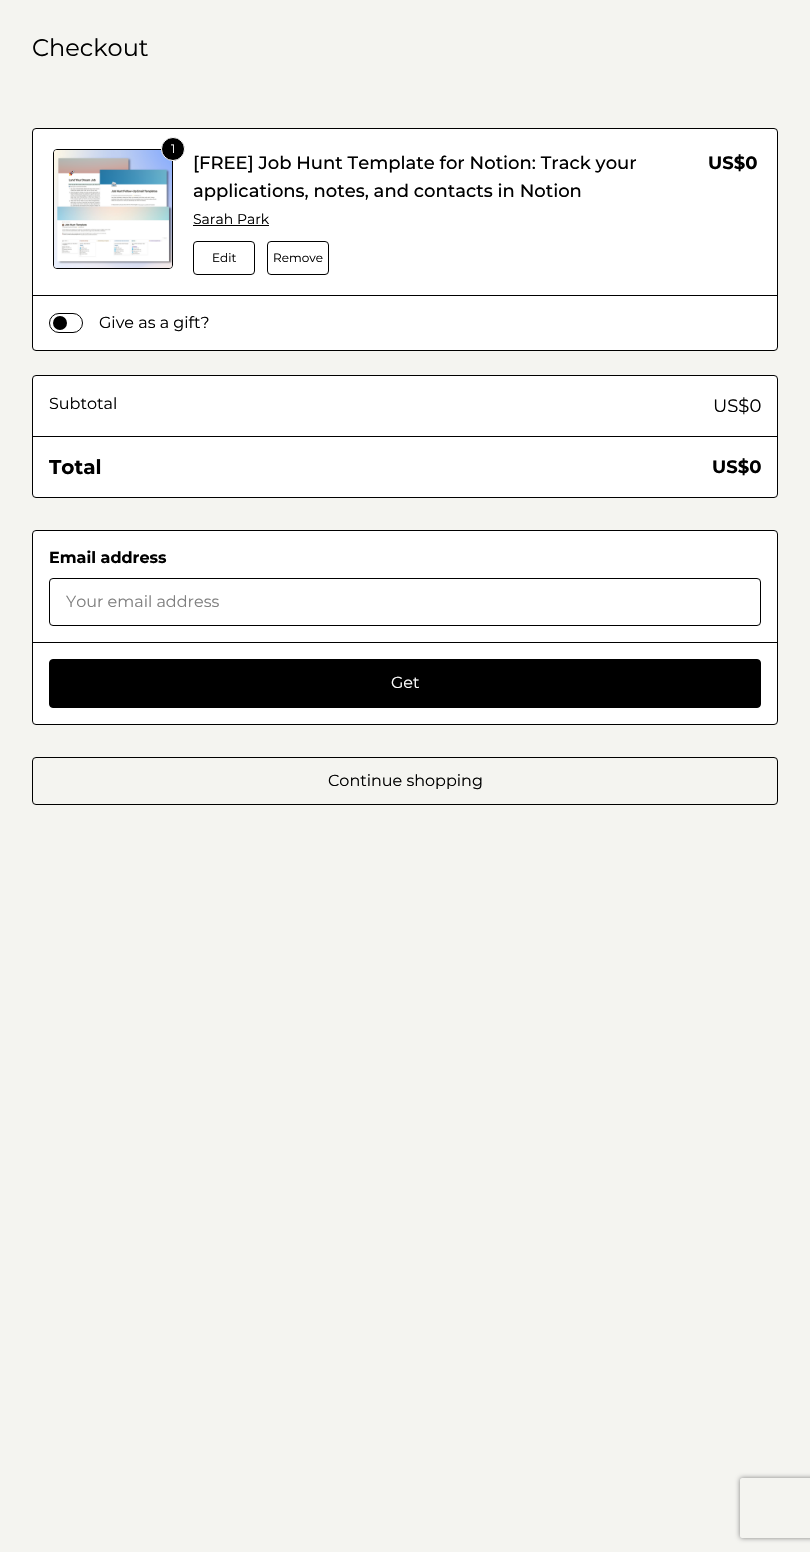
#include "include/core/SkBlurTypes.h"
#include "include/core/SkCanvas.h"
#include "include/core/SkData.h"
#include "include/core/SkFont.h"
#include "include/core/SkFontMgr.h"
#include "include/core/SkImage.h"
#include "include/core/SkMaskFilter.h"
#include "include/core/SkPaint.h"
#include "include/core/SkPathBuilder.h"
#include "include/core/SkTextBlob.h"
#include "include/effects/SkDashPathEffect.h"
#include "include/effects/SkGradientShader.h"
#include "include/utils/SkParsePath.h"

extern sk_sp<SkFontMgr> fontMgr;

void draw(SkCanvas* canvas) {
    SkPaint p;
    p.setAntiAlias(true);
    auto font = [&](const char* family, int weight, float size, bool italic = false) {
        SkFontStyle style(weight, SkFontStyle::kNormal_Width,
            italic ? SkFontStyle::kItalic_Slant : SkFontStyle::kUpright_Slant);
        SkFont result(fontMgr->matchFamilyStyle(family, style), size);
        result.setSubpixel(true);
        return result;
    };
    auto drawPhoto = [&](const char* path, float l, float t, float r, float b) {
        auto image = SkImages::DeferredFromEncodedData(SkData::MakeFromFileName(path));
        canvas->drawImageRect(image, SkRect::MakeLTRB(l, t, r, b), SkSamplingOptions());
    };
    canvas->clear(0xFFF4F4F0);
    auto font1 = font("Montserrat", 400, 24);
    p.setColor(0xFF000000);
    canvas->drawString("Checkout", 32, 56, font1, p);
    p.setColor(0xFFFFFFFF);
    canvas->drawRoundRect(SkRect::MakeLTRB(32.5f, 128.5f, 777.5f, 350.5f), 3.5f, 3.5f, p);
    p.setStyle(SkPaint::kStroke_Style);
    p.setStrokeWidth(1);
    p.setColor(0xFF000000);
    canvas->drawRoundRect(SkRect::MakeLTRB(32.5f, 128.5f, 777.5f, 350.5f), 3.5f, 3.5f, p);
    canvas->drawRoundRect(SkRect::MakeLTRB(53.5f, 149.5f, 172.5f, 268.5f), 3.5f, 3.5f, p);
    drawPhoto("media/1.png", 54, 150, 172, 268);
    p.setStyle(SkPaint::kFill_Style);
    canvas->drawCircle(173, 149, 11.5f, p);
    p.setStyle(SkPaint::kStroke_Style);
    p.setColor(0xFFFFFFFF);
    canvas->drawCircle(173, 149, 11.5f, p);
    auto font2 = font("Montserrat", 400, 12);
    p.setStyle(SkPaint::kFill_Style);
    canvas->drawString("1", 171, 153, font2, p);
    auto font3 = font("Montserrat", 500, 18);
    p.setColor(0xFF000000);
    canvas->drawString("[FREE] Job Hunt Template for Notion: Track your", 193, 169, font3, p);
    canvas->drawString("applications, notes, and contacts in Notion", 193, 197, font3, p);
    auto font4 = font("Montserrat", 400, 14);
    canvas->drawString("Sarah Park", 193, 224, font4, p);
    canvas->drawRect(SkRect::MakeLTRB(193, 225, 269, 226), p);
    p.setStyle(SkPaint::kStroke_Style);
    canvas->drawRoundRect(SkRect::MakeLTRB(193.5f, 241.5f, 254.5f, 274.5f), 3.5f, 3.5f, p);
    p.setStyle(SkPaint::kFill_Style);
    canvas->drawString("Edit", 212, 262, font2, p);
    p.setStyle(SkPaint::kStroke_Style);
    canvas->drawRoundRect(SkRect::MakeLTRB(267.5f, 241.5f, 328.5f, 274.5f), 3.5f, 3.5f, p);
    p.setStyle(SkPaint::kFill_Style);
    canvas->drawString("Remove", 273, 262, font2, p);
    auto font5 = font("Montserrat", 700, 18);
    canvas->drawString("US$0", 708, 169, font5, p);
    canvas->drawRect(SkRect::MakeLTRB(33, 295, 777, 296), p);
    p.setStyle(SkPaint::kStroke_Style);
    canvas->drawRoundRect(SkRect::MakeLTRB(49.5f, 313.5f, 82.5f, 332.5f), 9.5f, 9.5f, p);
    p.setStyle(SkPaint::kFill_Style);
    canvas->drawCircle(60, 323, 7, p);
    auto font6 = font("Montserrat", 400, 16);
    canvas->drawString("Give as a gift?", 99, 328, font6, p);
    p.setColor(0xFFFFFFFF);
    canvas->drawRoundRect(SkRect::MakeLTRB(32.5f, 375.5f, 777.5f, 497.5f), 3.5f, 3.5f, p);
    p.setStyle(SkPaint::kStroke_Style);
    p.setColor(0xFF000000);
    canvas->drawRoundRect(SkRect::MakeLTRB(32.5f, 375.5f, 777.5f, 497.5f), 3.5f, 3.5f, p);
    p.setStyle(SkPaint::kFill_Style);
    canvas->drawString("Subtotal", 49, 409, font6, p);
    auto font7 = font("Montserrat", 400, 18);
    canvas->drawString("US$0", 713, 412, font7, p);
    canvas->drawRect(SkRect::MakeLTRB(33, 436, 777, 437), p);
    auto font8 = font("Montserrat", 700, 20);
    canvas->drawString("Total", 49, 474, font8, p);
    canvas->drawString("US$0", 712, 473, font5, p);
    p.setColor(0xFFFFFFFF);
    canvas->drawRoundRect(SkRect::MakeLTRB(32.5f, 530.5f, 777.5f, 724.5f), 3.5f, 3.5f, p);
    p.setStyle(SkPaint::kStroke_Style);
    p.setColor(0xFF000000);
    canvas->drawRoundRect(SkRect::MakeLTRB(32.5f, 530.5f, 777.5f, 724.5f), 3.5f, 3.5f, p);
    auto font9 = font("Montserrat", 700, 16);
    p.setStyle(SkPaint::kFill_Style);
    canvas->drawString("Email address", 49, 563, font9, p);
    p.setStyle(SkPaint::kStroke_Style);
    canvas->drawRoundRect(SkRect::MakeLTRB(49.5f, 578.5f, 760.5f, 625.5f), 3.5f, 3.5f, p);
    p.setStyle(SkPaint::kFill_Style);
    p.setColor(0xFF808080);
    canvas->drawString("Your email address", 66, 607, font6, p);
    p.setColor(0xFF000000);
    canvas->drawRect(SkRect::MakeLTRB(33, 642, 777, 643), p);
    canvas->drawRoundRect(SkRect::MakeLTRB(49.5f, 659.5f, 760.5f, 707.5f), 3.5f, 3.5f, p);
    p.setStyle(SkPaint::kStroke_Style);
    canvas->drawRoundRect(SkRect::MakeLTRB(49.5f, 659.5f, 760.5f, 707.5f), 3.5f, 3.5f, p);
    p.setStyle(SkPaint::kFill_Style);
    p.setColor(0xFFFFFFFF);
    canvas->drawString("Get", 391, 688, font6, p);
    canvas->save();
    canvas->clipPath(SkPathBuilder(SkPathFillType::kEvenOdd).moveTo(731, 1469).lineTo(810, 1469).lineTo(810, 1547).lineTo(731, 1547).close().moveTo(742, 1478).lineTo(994, 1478).cubicTo(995, 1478, 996, 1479, 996, 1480).lineTo(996, 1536).cubicTo(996, 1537, 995, 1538, 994, 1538).lineTo(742, 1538).cubicTo(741, 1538, 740, 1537, 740, 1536).lineTo(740, 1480).cubicTo(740, 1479, 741, 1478, 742, 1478).close().detach(), true);
    p.setColor(0xFF808080);
    p.setMaskFilter(SkMaskFilter::MakeBlur(kNormal_SkBlurStyle, 2.5f));
    canvas->drawRoundRect(SkRect::MakeLTRB(740, 1478, 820, 1538), 2, 2, p);
    p.setMaskFilter(nullptr);
    canvas->restore();
    p.setStyle(SkPaint::kStroke_Style);
    p.setColor(0xFF000000);
    canvas->drawRoundRect(SkRect::MakeLTRB(32.5f, 757.5f, 777.5f, 804.5f), 3.5f, 3.5f, p);
    p.setStyle(SkPaint::kFill_Style);
    canvas->drawString("Continue shopping", 328, 786, font6, p);
}
